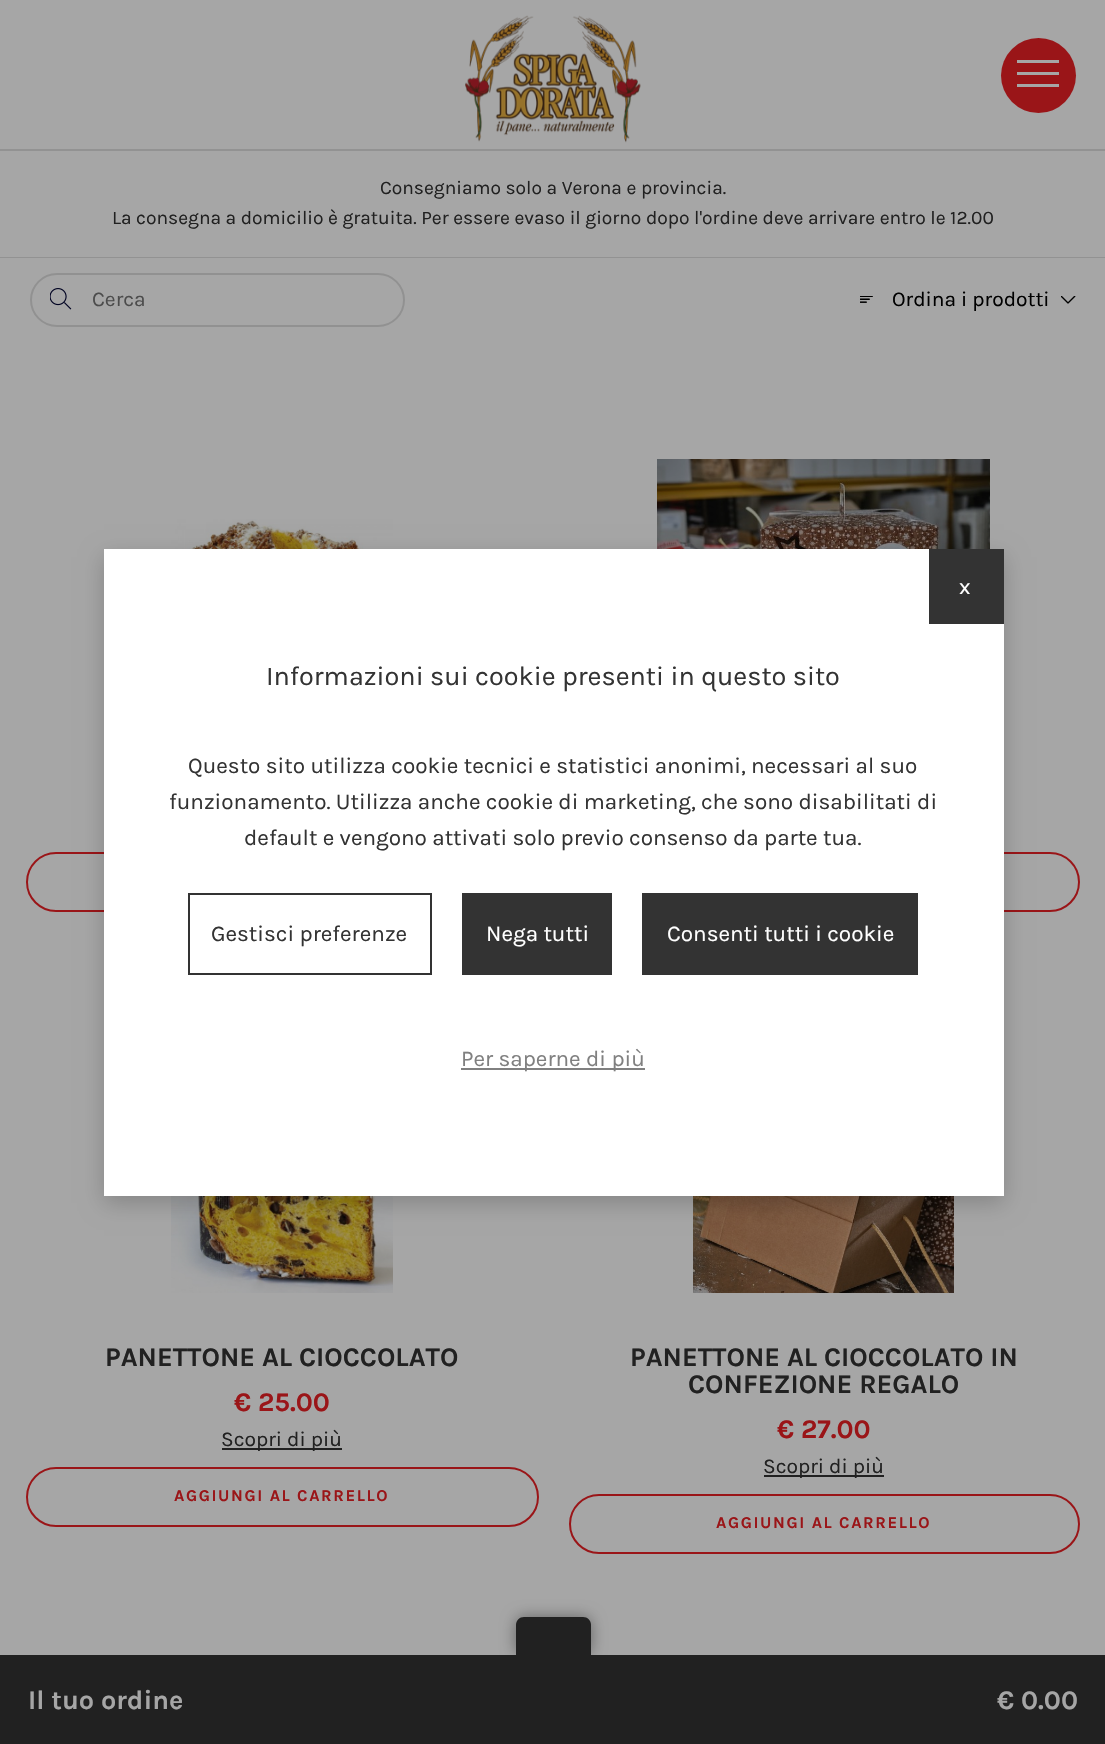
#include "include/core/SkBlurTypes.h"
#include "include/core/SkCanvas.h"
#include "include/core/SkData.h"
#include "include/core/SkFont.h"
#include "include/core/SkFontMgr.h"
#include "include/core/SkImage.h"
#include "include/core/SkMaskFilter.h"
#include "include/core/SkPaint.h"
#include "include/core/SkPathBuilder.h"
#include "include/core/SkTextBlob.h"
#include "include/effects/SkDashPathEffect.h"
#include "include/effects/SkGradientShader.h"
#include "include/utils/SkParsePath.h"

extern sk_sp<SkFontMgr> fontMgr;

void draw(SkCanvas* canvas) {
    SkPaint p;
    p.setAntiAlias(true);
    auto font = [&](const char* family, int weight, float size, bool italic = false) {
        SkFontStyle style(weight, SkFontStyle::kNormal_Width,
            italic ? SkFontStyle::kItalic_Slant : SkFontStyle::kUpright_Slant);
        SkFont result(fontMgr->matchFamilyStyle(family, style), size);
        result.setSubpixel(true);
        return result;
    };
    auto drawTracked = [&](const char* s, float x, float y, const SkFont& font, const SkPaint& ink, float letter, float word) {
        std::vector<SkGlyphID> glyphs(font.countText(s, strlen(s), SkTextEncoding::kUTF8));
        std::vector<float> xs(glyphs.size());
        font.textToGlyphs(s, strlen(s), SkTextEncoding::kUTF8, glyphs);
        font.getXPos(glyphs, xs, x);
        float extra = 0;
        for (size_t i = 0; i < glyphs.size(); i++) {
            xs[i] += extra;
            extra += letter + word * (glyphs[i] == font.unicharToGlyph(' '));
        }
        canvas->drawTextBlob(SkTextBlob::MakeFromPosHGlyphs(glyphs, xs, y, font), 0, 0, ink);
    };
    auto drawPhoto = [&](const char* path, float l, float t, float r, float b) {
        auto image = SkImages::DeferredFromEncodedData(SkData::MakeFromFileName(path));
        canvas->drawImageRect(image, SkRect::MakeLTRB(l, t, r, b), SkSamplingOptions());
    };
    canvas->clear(0xFFA6A6A6);
    p.setColor(0xFF929292);
    canvas->drawRect(SkRect::MakeLTRB(0, 149, 1105, 151), p);
    drawPhoto("media/1.png", 465, 15, 641, 143);
    p.setColor(0xFF9A1518);
    canvas->drawCircle(1038.5f, 75.5f, 37.5f, p);
    {
        const struct { float l, t, r, b; SkColor color; } items[] = {
            {1017, 60, 1059, 63, 0xFFA6A6A6},
            {1017, 72, 1059, 75, 0xFFA6A6A6},
            {1017, 84, 1059, 87, 0xFFA6A6A6},
            {0, 257, 1105, 258, 0xFF929292},
        };
        for (auto [l, t, r, b, color] : items) {
            p.setColor(color);
            canvas->drawRect(SkRect::MakeLTRB(l, t, r, b), p);
        }
    }
    auto font1 = font("Karla", 400, 19.2f);
    p.setColor(0xFF212121);
    canvas->drawString("Consegniamo solo a Verona e provincia.", 380, 194, font1, p);
    canvas->drawString("La consegna a domicilio è gratuita. Per essere evaso il giorno dopo l'ordine deve arrivare entro le 12.00", 112, 224, font1, p);
    drawPhoto("media/2.png", 50, 288, 72, 310);
    p.setStyle(SkPaint::kStroke_Style);
    p.setStrokeWidth(2);
    p.setColor(0xFF919191);
    canvas->drawRoundRect(SkRect::MakeLTRB(31, 274, 404, 326), 26, 26, p);
    auto font2 = font("Karla", 400, 21);
    p.setStyle(SkPaint::kFill_Style);
    p.setColor(0xFF4C4C4C);
    canvas->drawString("Cerca", 92, 306, font2, p);
    drawPhoto("media/3.png", 860, 296, 873, 303);
    drawPhoto("media/4.png", 1061, 296, 1076, 304);
    p.setColor(0xFF000000);
    canvas->drawString("Ordina i prodotti", 892, 306, font2, p);
    drawPhoto("media/5.png", 171, 519, 393, 549);
    p.setStyle(SkPaint::kStroke_Style);
    p.setColor(0xFF9A1518);
    canvas->drawRoundRect(SkRect::MakeLTRB(27, 853, 538, 911), 29, 29, p);
    drawPhoto("media/6.png", 657, 459, 990, 549);
    canvas->drawRoundRect(SkRect::MakeLTRB(570, 853, 1079, 911), 29, 29, p);
    drawPhoto("media/7.png", 171, 1196, 393, 1293);
    auto font3 = font("Karla", 700, 27);
    p.setStyle(SkPaint::kFill_Style);
    p.setColor(0xFF212121);
    canvas->drawString("PANETTONE AL CIOCCOLATO", 105, 1366, font3, p);
    p.setColor(0xFF9A1518);
    canvas->drawString("€ 25.00", 234, 1411, font3, p);
    p.setColor(0xFF212121);
    canvas->drawRect(SkRect::MakeLTRB(222, 1448, 342, 1450), p);
    canvas->drawString("Scopri di più", 221, 1446, font2, p);
    p.setStyle(SkPaint::kStroke_Style);
    p.setColor(0xFF9A1518);
    canvas->drawRoundRect(SkRect::MakeLTRB(27, 1468, 538, 1526), 29, 29, p);
    auto font4 = font("Karla", 700, 16.5f);
    p.setStyle(SkPaint::kFill_Style);
    drawTracked("AGGIUNGI AL CARRELLO", 174, 1501, font4, p, 1.6f, 0);
    drawPhoto("media/8.png", 693, 1196, 954, 1293);
    p.setColor(0xFF212121);
    canvas->drawString("PANETTONE AL CIOCCOLATO IN", 630, 1366, font3, p);
    canvas->drawString("CONFEZIONE REGALO", 688, 1393, font3, p);
    p.setColor(0xFF9A1518);
    canvas->drawString("€ 27.00", 777, 1438, font3, p);
    p.setColor(0xFF212121);
    canvas->drawRect(SkRect::MakeLTRB(764, 1475, 884, 1477), p);
    canvas->drawString("Scopri di più", 763, 1473, font2, p);
    p.setStyle(SkPaint::kStroke_Style);
    p.setColor(0xFF9A1518);
    canvas->drawRoundRect(SkRect::MakeLTRB(570, 1495, 1079, 1553), 29, 29, p);
    p.setStyle(SkPaint::kFill_Style);
    drawTracked("AGGIUNGI AL CARRELLO", 716, 1528, font4, p, 1.6f, 0);
    p.setColor(0x66000000);
    p.setMaskFilter(SkMaskFilter::MakeBlur(kNormal_SkBlurStyle, 7.5f));
    canvas->drawRoundRect(SkRect::MakeLTRB(516, 1617, 591, 1655), 8, 8, p);
    p.setMaskFilter(nullptr);
    p.setColor(0xFF212121);
    canvas->drawRect(SkRect::MakeLTRB(0, 1655, 1105, 1744), p);
    canvas->drawPath(SkPathBuilder().moveTo(524, 1617).lineTo(583, 1617).cubicTo(587.5f, 1617, 591, 1620.5f, 591, 1625).lineTo(591, 1655).lineTo(516, 1655).lineTo(516, 1625).cubicTo(516, 1620.5f, 519.5f, 1617, 524, 1617).close().detach(), p);
    p.setColor(0xFFA6A6A6);
    canvas->drawString("Il tuo ordine", 28, 1709, font3, p);
    canvas->drawString("€ 0.00", 997, 1709, font3, p);
    p.setColor(0x33000000);
    p.setMaskFilter(SkMaskFilter::MakeBlur(kNormal_SkBlurStyle, 11));
    canvas->drawRect(SkRect::MakeLTRB(104, 557, 1004, 1203), p);
    p.setMaskFilter(nullptr);
    p.setColor(0xFFFFFFFF);
    canvas->drawRect(SkRect::MakeLTRB(104, 549, 1004, 1196), p);
    p.setColor(0xFF333333);
    canvas->drawRect(SkRect::MakeLTRB(929, 549, 1004, 624), p);
    auto font5 = font("Karla", 400, 22.5f);
    p.setColor(0xFFFFFFFF);
    canvas->drawString("x", 959, 594, font5, p);
    auto font6 = font("Karla", 400, 27);
    p.setColor(0xFF333333);
    canvas->drawString("Informazioni sui cookie presenti in questo sito", 266, 685, font6, p);
    {
        const struct { const char* s; float x, y; } items[] = {
            {"Questo sito utilizza cookie tecnici e statistici anonimi, necessari al suo", 188, 773},
            {"funzionamento. Utilizza anche cookie di marketing, che sono disabilitati di", 169, 809},
            {"default e vengono attivati solo previo consenso da parte tua.", 244, 845},
        };
        for (auto [s, x, y] : items) {
            canvas->drawString(s, x, y, font5, p);
        }
    }
    p.setStyle(SkPaint::kStroke_Style);
    canvas->drawRect(SkRect::MakeLTRB(189, 894, 431, 974), p);
    p.setStyle(SkPaint::kFill_Style);
    canvas->drawString("Gestisci preferenze", 211, 941, font5, p);
    canvas->drawRect(SkRect::MakeLTRB(462, 893, 612, 975), p);
    p.setColor(0xFFFFFFFF);
    canvas->drawString("Nega tutti", 486, 941, font5, p);
    p.setColor(0xFF333333);
    canvas->drawRect(SkRect::MakeLTRB(642, 893, 918, 975), p);
    p.setColor(0xFFFFFFFF);
    canvas->drawString("Consenti tutti i cookie", 667, 941, font5, p);
    p.setColor(0xFF808080);
    canvas->drawRect(SkRect::MakeLTRB(461, 1068, 645, 1070), p);
    canvas->drawString("Per saperne di più", 461, 1066, font5, p);
}
